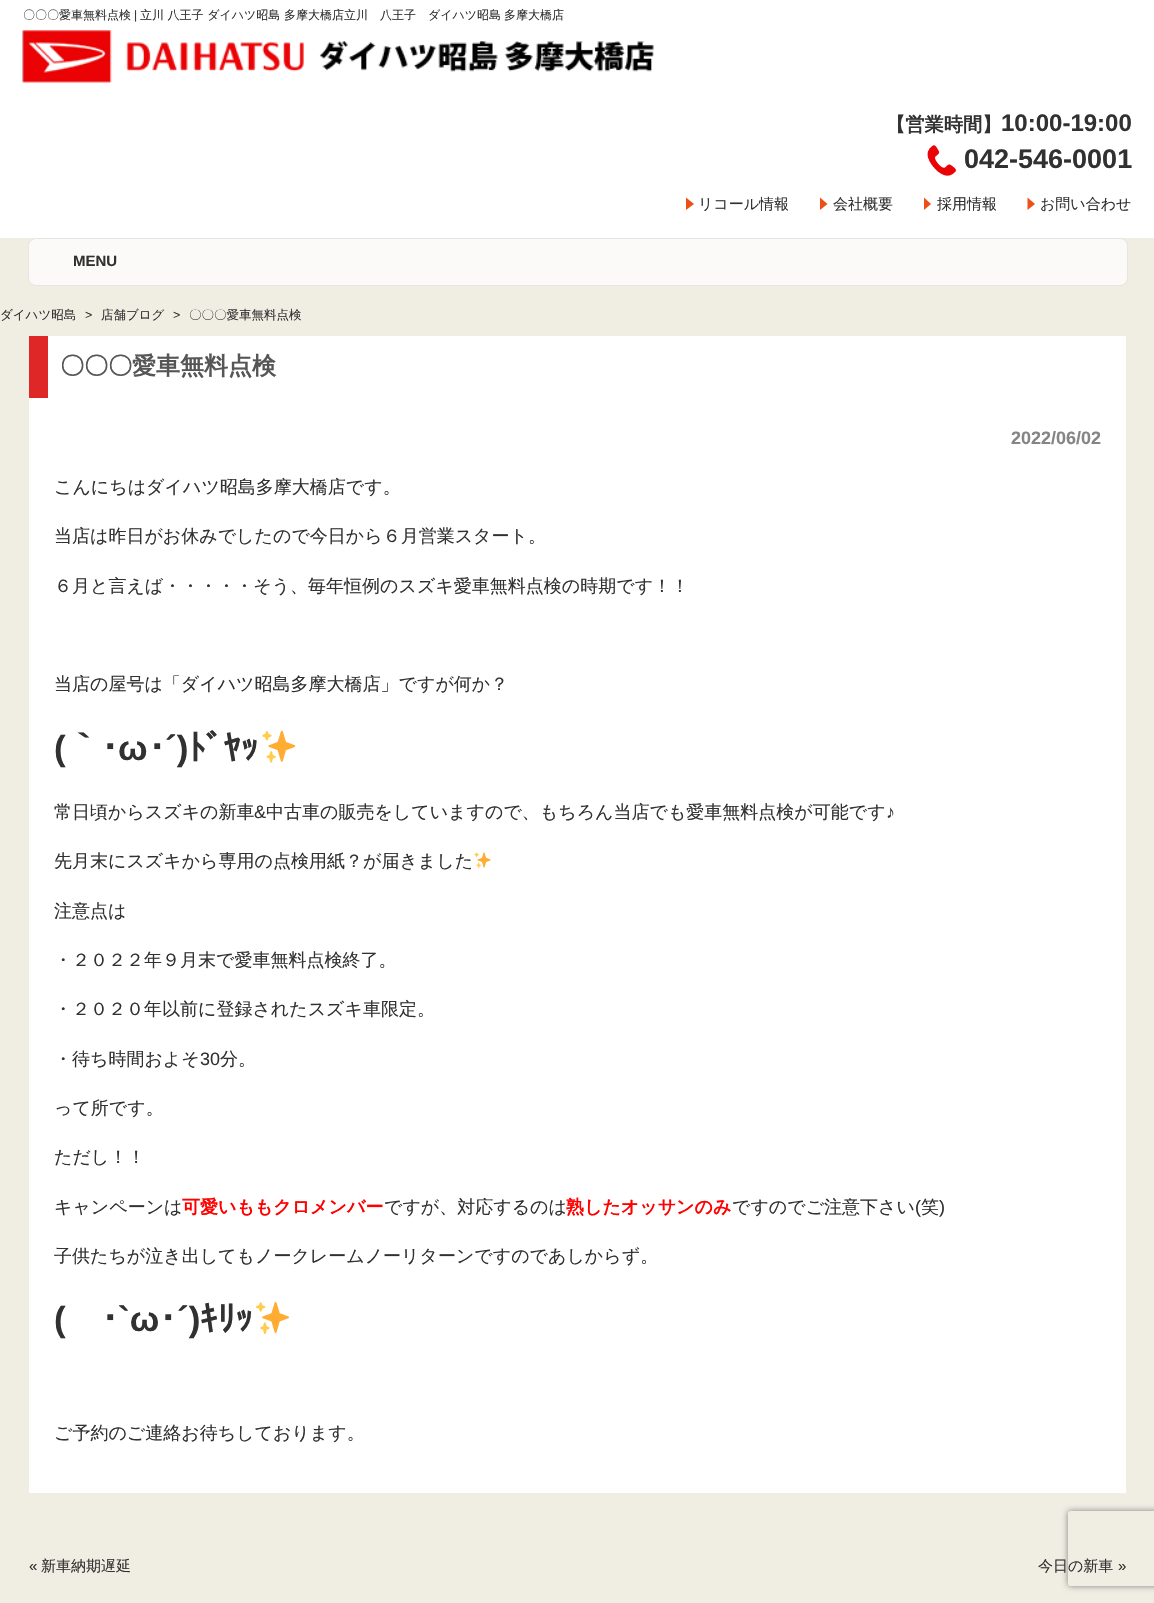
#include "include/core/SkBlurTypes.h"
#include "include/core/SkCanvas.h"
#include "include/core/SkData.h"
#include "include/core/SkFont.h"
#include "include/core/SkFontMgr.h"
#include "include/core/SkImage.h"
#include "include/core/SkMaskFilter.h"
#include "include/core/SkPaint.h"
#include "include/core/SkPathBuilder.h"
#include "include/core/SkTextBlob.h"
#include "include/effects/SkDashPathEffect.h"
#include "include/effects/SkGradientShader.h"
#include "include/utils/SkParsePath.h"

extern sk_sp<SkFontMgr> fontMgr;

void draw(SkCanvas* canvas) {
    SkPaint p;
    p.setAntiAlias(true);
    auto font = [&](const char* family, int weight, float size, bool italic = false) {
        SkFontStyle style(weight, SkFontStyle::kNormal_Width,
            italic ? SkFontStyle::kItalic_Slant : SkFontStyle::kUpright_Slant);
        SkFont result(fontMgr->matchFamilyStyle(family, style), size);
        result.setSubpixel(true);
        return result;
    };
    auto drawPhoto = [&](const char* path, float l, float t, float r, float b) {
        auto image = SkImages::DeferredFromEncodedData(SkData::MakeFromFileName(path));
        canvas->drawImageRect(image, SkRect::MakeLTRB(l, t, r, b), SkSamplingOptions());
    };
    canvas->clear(0xFFF0EEE3);
    p.setColor(0xFFFFFFFF);
    canvas->drawRect(SkRect::MakeLTRB(0, 0, 1154, 238), p);
    auto font1 = font("WenQuanYi Zen Hei", 500, 12);
    p.setColor(0xFF313131);
    canvas->drawString("〇〇〇愛車無料点検", 23, 19, font1, p);
    auto font2 = font("Liberation Sans", 400, 12);
    canvas->drawString("|", 134, 19, font2, p);
    canvas->drawString("立川 八王子 ダイハツ昭島 多摩大橋店立川　八王子　ダイハツ昭島", 140, 19, font1, p);
    canvas->drawString("多摩大橋店", 504, 19, font1, p);
    drawPhoto("media/1.png", 22, 30, 654, 83);
    auto font3 = font("WenQuanYi Zen Hei", 700, 19.25f);
    canvas->drawString("【営業時間】", 886, 131, font3, p);
    auto font4 = font("Liberation Sans", 700, 24);
    canvas->drawString("10:00-19:00", 1001, 131, font4, p);
    drawPhoto("media/2.png", 927, 145, 957, 176);
    auto font5 = font("Liberation Sans", 700, 27);
    canvas->drawString("042-546-0001", 964, 168, font5, p);
    p.setColor(0xFFEE4F16);
    canvas->drawPath(SkPathBuilder().moveTo(686, 210).lineTo(686, 197.5f).lineTo(694, 204).close().detach(), p);
    auto font6 = font("WenQuanYi Zen Hei", 500, 15);
    p.setColor(0xFF313131);
    canvas->drawString("リコール情報", 698, 209, font6, p);
    p.setColor(0xFFEE4F16);
    canvas->drawPath(SkPathBuilder().moveTo(820, 210).lineTo(820, 197.5f).lineTo(827.5f, 204).close().detach(), p);
    p.setColor(0xFF313131);
    canvas->drawString("会社概要", 833, 209, font6, p);
    p.setColor(0xFFEE4F16);
    canvas->drawPath(SkPathBuilder().moveTo(924, 210).lineTo(924, 197.5f).lineTo(931, 204).close().detach(), p);
    p.setColor(0xFF313131);
    canvas->drawString("採用情報", 937, 209, font6, p);
    p.setColor(0xFFEE4F16);
    canvas->drawPath(SkPathBuilder().moveTo(1027.5f, 210).lineTo(1027.5f, 197.5f).lineTo(1035, 204).close().detach(), p);
    p.setColor(0xFF313131);
    canvas->drawString("お問い合わせ", 1040, 209, font6, p);
    p.setColor(0xFFFBFAF9);
    canvas->drawRoundRect(SkRect::MakeLTRB(28.5f, 238.5f, 1127.5f, 285.5f), 7.5f, 7.5f, p);
    p.setStyle(SkPaint::kStroke_Style);
    p.setStrokeWidth(1);
    p.setColor(0xFFE8E5E0);
    canvas->drawRoundRect(SkRect::MakeLTRB(28.5f, 238.5f, 1127.5f, 285.5f), 7.5f, 7.5f, p);
    auto font7 = font("Liberation Sans", 700, 15);
    p.setStyle(SkPaint::kFill_Style);
    p.setColor(0xFF313131);
    canvas->drawString("MENU", 73, 266, font7, p);
    auto font8 = font("WenQuanYi Zen Hei", 500, 12.5f);
    canvas->drawString("ダイハツ昭島", 0, 319, font8, p);
    auto font9 = font("Liberation Sans", 400, 12.5f);
    canvas->drawString(">", 85, 319, font9, p);
    canvas->drawString("店舗ブログ", 101, 319, font8, p);
    canvas->drawString(">", 173, 319, font9, p);
    canvas->drawString("〇〇〇愛車無料点検", 189, 319, font8, p);
    p.setColor(0xFFFFFFFF);
    canvas->drawRect(SkRect::MakeLTRB(48, 336, 1126, 398), p);
    p.setColor(0xFFDE2726);
    canvas->drawRect(SkRect::MakeLTRB(29, 336, 48, 398), p);
    auto font10 = font("WenQuanYi Zen Hei", 700, 24);
    p.setColor(0xFF565656);
    canvas->drawString("〇〇〇愛車無料点検", 60, 374, font10, p);
    p.setColor(0xFFFFFFFF);
    canvas->drawRect(SkRect::MakeLTRB(29, 398, 1126, 1493), p);
    auto font11 = font("Liberation Sans", 700, 18);
    p.setColor(0xFF858585);
    canvas->drawString("2022/06/02", 1011, 444, font11, p);
    auto font12 = font("WenQuanYi Zen Hei", 500, 18);
    p.setColor(0xFF313131);
    {
        const struct { const char* s; float x, y; } items[] = {
            {"こんにちはダイハツ昭島多摩大橋店です。", 54, 493},
            {"当店は昨日がお休みでしたので今日から６月営業スタート。", 54, 542},
            {"６月と言えば・・・・・そう、毎年恒例のスズキ愛車無料点検の時期です！！", 54, 592},
            {"当店の屋号は「ダイハツ昭島多摩大橋店」ですが何か？", 54, 690},
        };
        for (auto [s, x, y] : items) {
            canvas->drawString(s, x, y, font12, p);
        }
    }
    auto font13 = font("Liberation Sans", 700, 35);
    canvas->drawString("(", 54, 760, font13, p);
    auto font14 = font("IPAPGothic", 700, 35);
    canvas->drawString("｀･", 66, 760, font14, p);
    canvas->drawString("ω", 118, 760, font13, p);
    canvas->drawString("･", 148, 760, font14, p);
    canvas->drawString("´)", 165, 760, font13, p);
    canvas->drawString("ﾄﾞﾔｯ", 188, 760, font14, p);
    drawPhoto("media/3.png", 262, 730, 296, 763);
    canvas->drawString("常日頃からスズキの新車", 54, 818, font12, p);
    auto font15 = font("Liberation Sans", 400, 18);
    canvas->drawString("&", 254, 818, font15, p);
    canvas->drawString("中古車の販売をしていますので、もちろん当店でも愛車無料点検が可能です", 266, 818, font12, p);
    canvas->drawString("♪", 886, 818, font15, p);
    canvas->drawString("先月末にスズキから専用の点検用紙？が届きました", 54, 867, font12, p);
    drawPhoto("media/4.png", 474, 852, 491, 869);
    {
        const struct { const char* s; float x, y; } items[] = {
            {"注意点は", 54, 917},
            {"・２０２２年９月末で愛車無料点検終了。", 54, 966},
            {"・２０２０年以前に登録されたスズキ車限定。", 54, 1015},
            {"・待ち時間およそ", 54, 1065},
        };
        for (auto [s, x, y] : items) {
            canvas->drawString(s, x, y, font12, p);
        }
    }
    canvas->drawString("30", 200, 1065, font15, p);
    {
        const struct { const char* s; float x, y; } items[] = {
            {"分。", 220, 1065},
            {"って所です。", 54, 1114},
            {"ただし！！", 54, 1163},
            {"キャンペーンは", 54, 1213},
        };
        for (auto [s, x, y] : items) {
            canvas->drawString(s, x, y, font12, p);
        }
    }
    auto font16 = font("WenQuanYi Zen Hei", 700, 18);
    p.setColor(0xFFFF0000);
    canvas->drawString("可愛いももクロメンバー", 182, 1213, font16, p);
    p.setColor(0xFF313131);
    canvas->drawString("ですが、対応するのは", 384, 1213, font12, p);
    p.setColor(0xFFFF0000);
    canvas->drawString("熟したオッサンのみ", 566, 1213, font16, p);
    p.setColor(0xFF313131);
    canvas->drawString("ですのでご注意下さい", 732, 1213, font12, p);
    canvas->drawString("(", 915, 1213, font15, p);
    canvas->drawString("笑", 921, 1213, font12, p);
    canvas->drawString(")", 939, 1213, font15, p);
    canvas->drawString("子供たちが泣き出してもノークレームノーリターンですのであしからず。", 54, 1262, font12, p);
    canvas->drawString("(", 54, 1331, font13, p);
    canvas->drawString("･", 101, 1331, font14, p);
    canvas->drawString("`ω", 118, 1331, font13, p);
    canvas->drawString("･", 159, 1331, font14, p);
    canvas->drawString("´)", 177, 1331, font13, p);
    canvas->drawString("ｷﾘｯ", 200, 1331, font14, p);
    drawPhoto("media/5.png", 256, 1302, 289, 1334);
    canvas->drawString("ご予約のご連絡お待ちしております。", 54, 1439, font12, p);
    auto font17 = font("Liberation Sans", 400, 15);
    canvas->drawString("«", 29, 1571, font17, p);
    canvas->drawString("新車納期遅延", 41, 1571, font6, p);
    canvas->drawString("今日の新車", 1038, 1571, font6, p);
    canvas->drawString("»", 1118, 1571, font17, p);
    canvas->save();
    canvas->clipPath(SkPathBuilder(SkPathFillType::kEvenOdd).moveTo(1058, 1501).lineTo(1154, 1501).lineTo(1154, 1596).lineTo(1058, 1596).close().moveTo(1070.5f, 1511).lineTo(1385.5f, 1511).cubicTo(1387, 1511, 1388, 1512, 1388, 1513.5f).lineTo(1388, 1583.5f).cubicTo(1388, 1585, 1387, 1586, 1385.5f, 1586).lineTo(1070.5f, 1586).cubicTo(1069, 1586, 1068, 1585, 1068, 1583.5f).lineTo(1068, 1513.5f).cubicTo(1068, 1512, 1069, 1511, 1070.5f, 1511).close().detach(), true);
    p.setColor(0xFF808080);
    p.setMaskFilter(SkMaskFilter::MakeBlur(kNormal_SkBlurStyle, 3));
    canvas->drawRoundRect(SkRect::MakeLTRB(1068, 1511, 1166, 1586), 2.5f, 2.5f, p);
    p.setMaskFilter(nullptr);
    canvas->restore();
}
